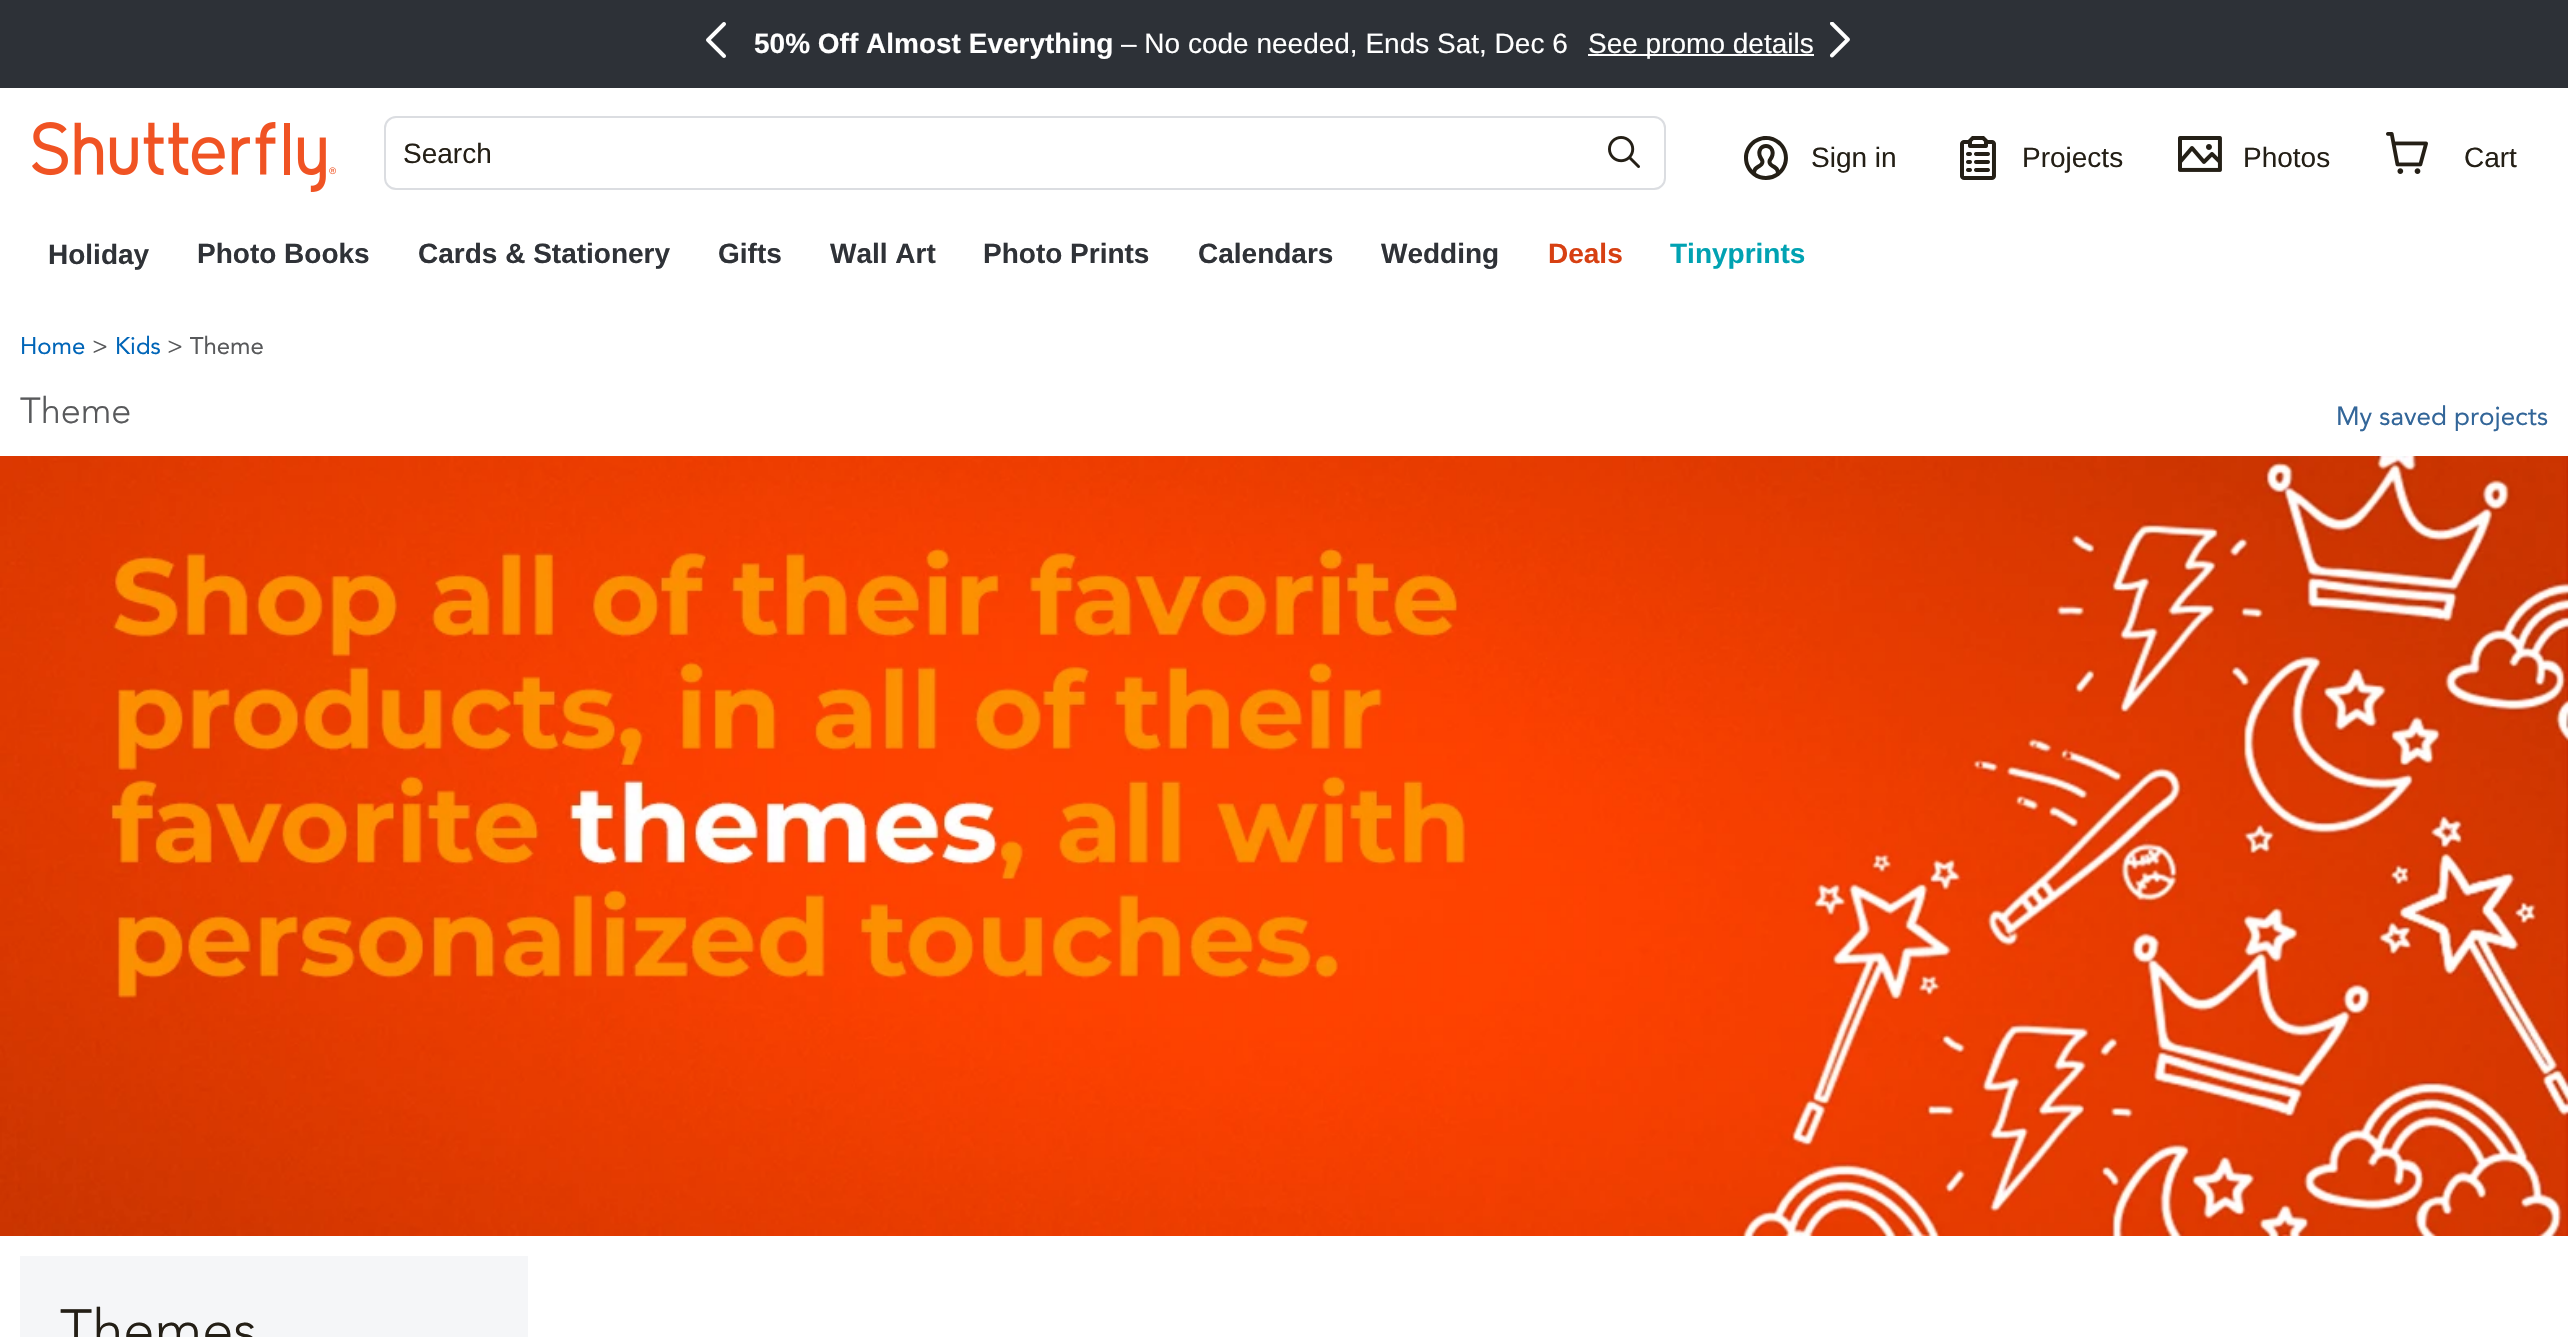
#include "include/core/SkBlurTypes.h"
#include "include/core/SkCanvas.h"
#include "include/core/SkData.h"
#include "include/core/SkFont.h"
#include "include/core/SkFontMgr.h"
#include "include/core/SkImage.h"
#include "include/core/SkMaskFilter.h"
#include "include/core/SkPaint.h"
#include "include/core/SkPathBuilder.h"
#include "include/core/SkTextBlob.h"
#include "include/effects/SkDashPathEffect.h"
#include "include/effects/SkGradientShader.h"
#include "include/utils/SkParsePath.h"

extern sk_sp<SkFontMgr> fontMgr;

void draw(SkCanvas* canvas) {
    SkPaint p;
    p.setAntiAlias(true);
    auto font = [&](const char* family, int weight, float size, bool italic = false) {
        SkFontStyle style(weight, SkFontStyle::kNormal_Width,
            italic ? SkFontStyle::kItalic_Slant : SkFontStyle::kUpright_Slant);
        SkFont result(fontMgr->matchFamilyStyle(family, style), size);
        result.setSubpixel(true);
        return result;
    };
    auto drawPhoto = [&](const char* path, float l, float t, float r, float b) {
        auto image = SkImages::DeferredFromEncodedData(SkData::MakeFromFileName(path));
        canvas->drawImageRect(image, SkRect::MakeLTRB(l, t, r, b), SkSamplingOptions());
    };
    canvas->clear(0xFFFFFFFF);
    p.setColor(0xFF2D3137);
    canvas->drawRect(SkRect::MakeLTRB(0, 0, 2568, 88), p);
    drawPhoto("media/1.png", 706, 22, 726, 58);
    auto font1 = font("Liberation Sans", 700, 28);
    p.setColor(0xFFFFFFFF);
    canvas->drawString("50% Off Almost Everything", 754, 53, font1, p);
    auto font2 = font("Liberation Sans", 400, 28);
    canvas->drawString("– No code needed, Ends Sat, Dec 6", 1121, 53, font2, p);
    canvas->drawRect(SkRect::MakeLTRB(1588, 54, 1814, 56), p);
    canvas->drawString("See promo details", 1588, 53, font2, p);
    drawPhoto("media/2.png", 1830, 22, 1850, 58);
    drawPhoto("media/3.png", 32, 122, 336, 192);
    p.setStyle(SkPaint::kStroke_Style);
    p.setStrokeWidth(2);
    p.setColor(0xFFDBDDE1);
    canvas->drawRoundRect(SkRect::MakeLTRB(385, 117, 1665, 189), 11, 11, p);
    drawPhoto("media/4.png", 1608, 136, 1640, 168);
    p.setStyle(SkPaint::kFill_Style);
    p.setColor(0xFF241F16);
    canvas->drawString("Search", 403, 163, font2, p);
    drawPhoto("media/5.png", 1744, 136, 1788, 180);
    canvas->drawString("Sign in", 1811, 167, font2, p);
    drawPhoto("media/6.png", 1960, 136, 1996, 180);
    canvas->drawString("Projects", 2022, 167, font2, p);
    drawPhoto("media/7.png", 2178, 136, 2222, 172);
    canvas->drawString("Photos", 2243, 167, font2, p);
    drawPhoto("media/8.png", 2386, 132, 2428, 174);
    canvas->drawString("Cart", 2464, 167, font2, p);
    p.setColor(0xFF2F3237);
    {
        const struct { const char* s; float x, y; } items[] = {
            {"Holiday", 48, 264},
            {"Photo Books", 197, 263},
            {"Cards & Stationery", 418, 263},
            {"Gifts", 718, 263},
            {"Wall Art", 830, 263},
            {"Photo Prints", 983, 263},
            {"Calendars", 1198, 263},
            {"Wedding", 1381, 263},
        };
        for (auto [s, x, y] : items) {
            canvas->drawString(s, x, y, font1, p);
        }
    }
    p.setColor(0xFFD74012);
    canvas->drawString("Deals", 1548, 263, font1, p);
    p.setColor(0xFF00A2B2);
    canvas->drawString("Tinyprints", 1670, 263, font1, p);
    auto font3 = font("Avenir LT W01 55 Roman", 400, 24);
    p.setColor(0xFF0065B8);
    canvas->drawString("Home", 20, 354, font3, p);
    p.setColor(0xFF58595B);
    canvas->drawString(">", 92, 354, font3, p);
    p.setColor(0xFF0065B8);
    canvas->drawString("Kids", 115, 354, font3, p);
    p.setColor(0xFF58595B);
    canvas->drawString("> Theme", 167, 354, font3, p);
    auto font4 = font("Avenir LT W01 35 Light", 300, 36);
    canvas->drawString("Theme", 20, 423, font4, p);
    auto font5 = font("Avenir LT W01 55 Roman", 400, 26);
    p.setColor(0xFF336699);
    canvas->drawString("My saved projects", 2336, 425, font5, p);
    drawPhoto("media/9.png", 0, 456, 2568, 1236);
    p.setColor(0xFFF5F6F8);
    canvas->drawRect(SkRect::MakeLTRB(20, 1256, 528, 1337), p);
    auto font6 = font("Avenir LT W01 35 Light", 300, 56);
    p.setColor(0xFF241F16);
    canvas->drawString("Themes", 60, 1349, font6, p);
}
